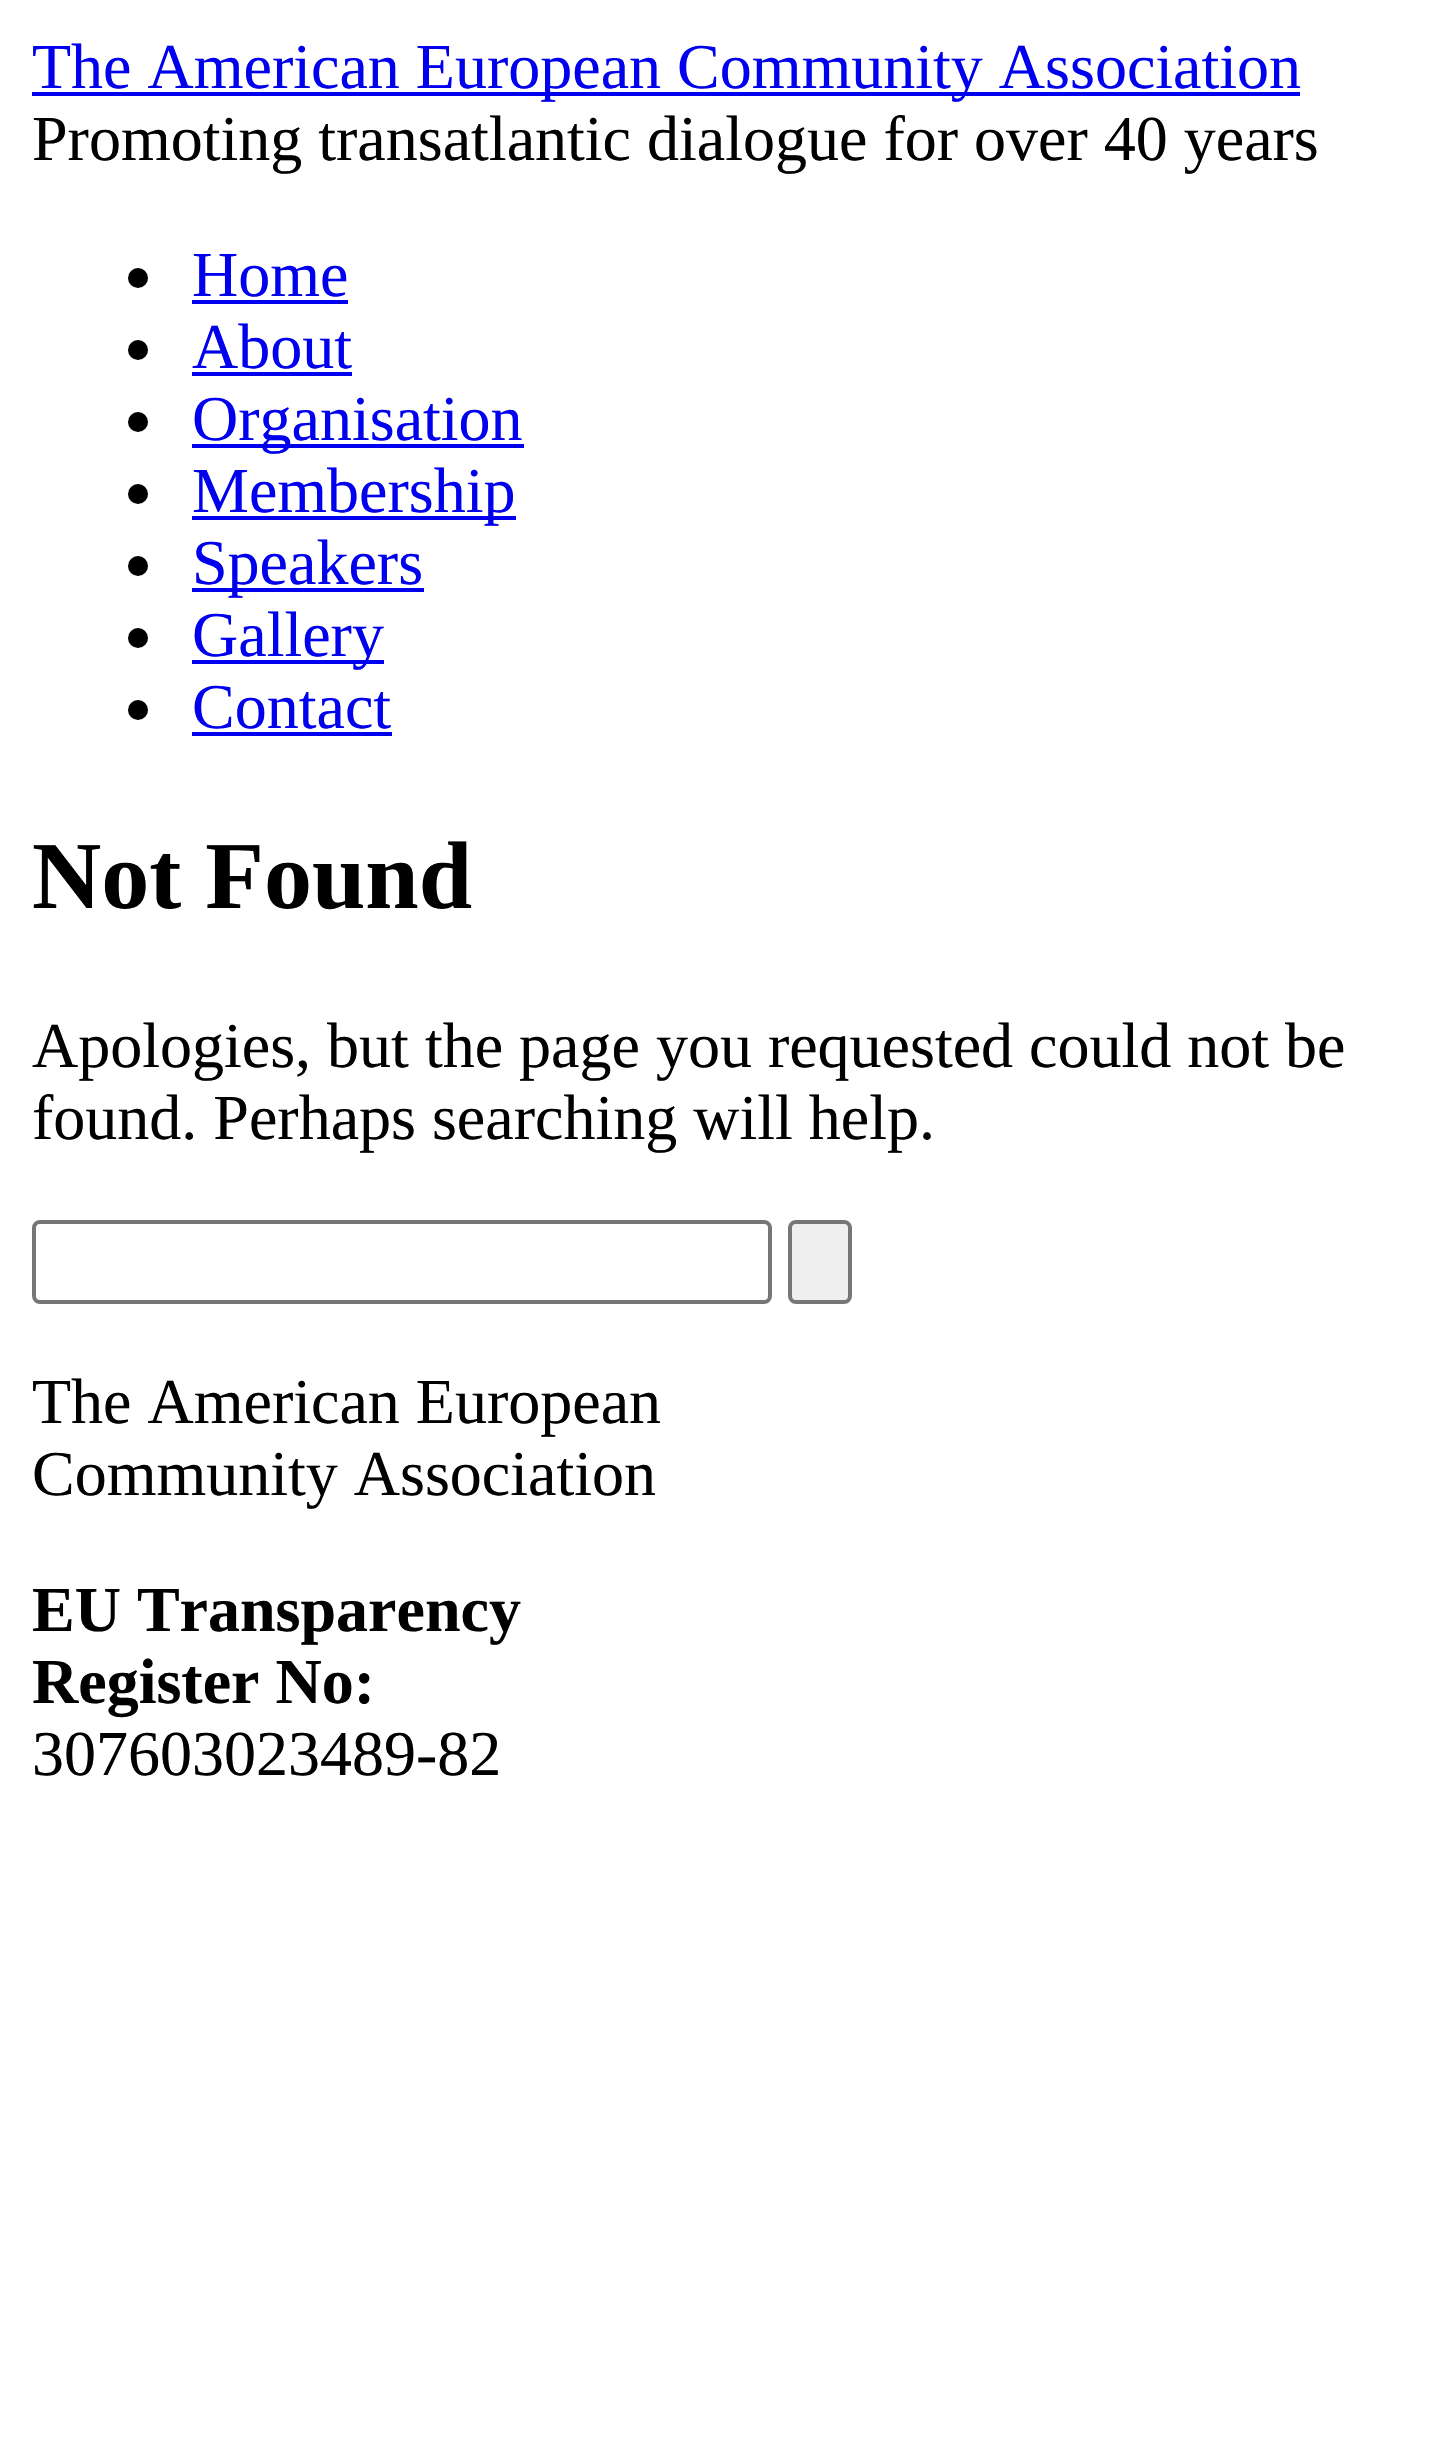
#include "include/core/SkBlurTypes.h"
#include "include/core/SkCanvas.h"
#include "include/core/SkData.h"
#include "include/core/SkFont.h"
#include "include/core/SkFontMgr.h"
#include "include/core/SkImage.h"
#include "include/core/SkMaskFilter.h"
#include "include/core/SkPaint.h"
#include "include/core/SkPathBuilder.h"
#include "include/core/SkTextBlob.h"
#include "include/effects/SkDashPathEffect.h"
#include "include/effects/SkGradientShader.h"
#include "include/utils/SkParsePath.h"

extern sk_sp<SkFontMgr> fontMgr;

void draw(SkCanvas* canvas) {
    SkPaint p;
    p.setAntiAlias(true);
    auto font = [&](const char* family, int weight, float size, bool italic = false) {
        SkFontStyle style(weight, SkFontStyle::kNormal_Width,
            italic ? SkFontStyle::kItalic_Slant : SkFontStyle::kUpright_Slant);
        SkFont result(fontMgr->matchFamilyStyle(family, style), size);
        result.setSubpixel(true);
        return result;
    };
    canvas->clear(0xFFFFFFFF);
    p.setColor(0xFF0000EE);
    canvas->drawRect(SkRect::MakeLTRB(32, 92, 1300, 96), p);
    auto font1 = font("Liberation Serif", 400, 64);
    canvas->drawString("The American European Community Association", 32, 88, font1, p);
    p.setColor(0xFF000000);
    canvas->drawString("Promoting transatlantic dialogue for over 40 years", 32, 160, font1, p);
    canvas->drawCircle(138, 278, 10, p);
    p.setColor(0xFF0000EE);
    canvas->drawString("Home", 192, 296, font1, p);
    canvas->drawRect(SkRect::MakeLTRB(192, 300, 348, 304), p);
    p.setColor(0xFF000000);
    canvas->drawCircle(138, 350, 10, p);
    p.setColor(0xFF0000EE);
    canvas->drawString("About", 192, 368, font1, p);
    canvas->drawRect(SkRect::MakeLTRB(192, 372, 352, 376), p);
    p.setColor(0xFF000000);
    canvas->drawCircle(138, 422, 10, p);
    p.setColor(0xFF0000EE);
    canvas->drawRect(SkRect::MakeLTRB(192, 444, 524, 448), p);
    canvas->drawString("Organisation", 192, 440, font1, p);
    p.setColor(0xFF000000);
    canvas->drawCircle(138, 494, 10, p);
    p.setColor(0xFF0000EE);
    canvas->drawRect(SkRect::MakeLTRB(192, 516, 516, 520), p);
    canvas->drawString("Membership", 192, 512, font1, p);
    p.setColor(0xFF000000);
    canvas->drawCircle(138, 566, 10, p);
    p.setColor(0xFF0000EE);
    canvas->drawRect(SkRect::MakeLTRB(192, 588, 424, 592), p);
    canvas->drawString("Speakers", 192, 584, font1, p);
    p.setColor(0xFF000000);
    canvas->drawCircle(138, 638, 10, p);
    p.setColor(0xFF0000EE);
    canvas->drawRect(SkRect::MakeLTRB(192, 660, 384, 664), p);
    canvas->drawString("Gallery", 192, 656, font1, p);
    p.setColor(0xFF000000);
    canvas->drawCircle(138, 710, 10, p);
    p.setColor(0xFF0000EE);
    canvas->drawString("Contact", 192, 728, font1, p);
    canvas->drawRect(SkRect::MakeLTRB(192, 732, 392, 736), p);
    auto font2 = font("Liberation Serif", 700, 96);
    p.setColor(0xFF000000);
    canvas->drawString("Not Found", 32, 908, font2, p);
    canvas->drawString("Apologies, but the page you requested could not be", 32, 1067, font1, p);
    canvas->drawString("found. Perhaps searching will help.", 32, 1139, font1, p);
    p.setStyle(SkPaint::kStroke_Style);
    p.setStrokeWidth(4);
    p.setColor(0xFF767676);
    canvas->drawRoundRect(SkRect::MakeLTRB(34, 1222, 770, 1302), 6, 6, p);
    p.setStyle(SkPaint::kFill_Style);
    p.setColor(0xFFEFEFEF);
    canvas->drawRoundRect(SkRect::MakeLTRB(790, 1222, 850, 1302), 6, 6, p);
    p.setStyle(SkPaint::kStroke_Style);
    p.setColor(0xFF767676);
    canvas->drawRoundRect(SkRect::MakeLTRB(790, 1222, 850, 1302), 6, 6, p);
    p.setStyle(SkPaint::kFill_Style);
    p.setColor(0xFF000000);
    canvas->drawString("The American European", 32, 1423, font1, p);
    canvas->drawString("Community Association", 32, 1495, font1, p);
    auto font3 = font("Liberation Serif", 700, 64);
    canvas->drawString("EU Transparency", 32, 1631, font3, p);
    canvas->drawString("Register No:", 32, 1703, font3, p);
    canvas->drawString("307603023489-82", 32, 1775, font1, p);
}
